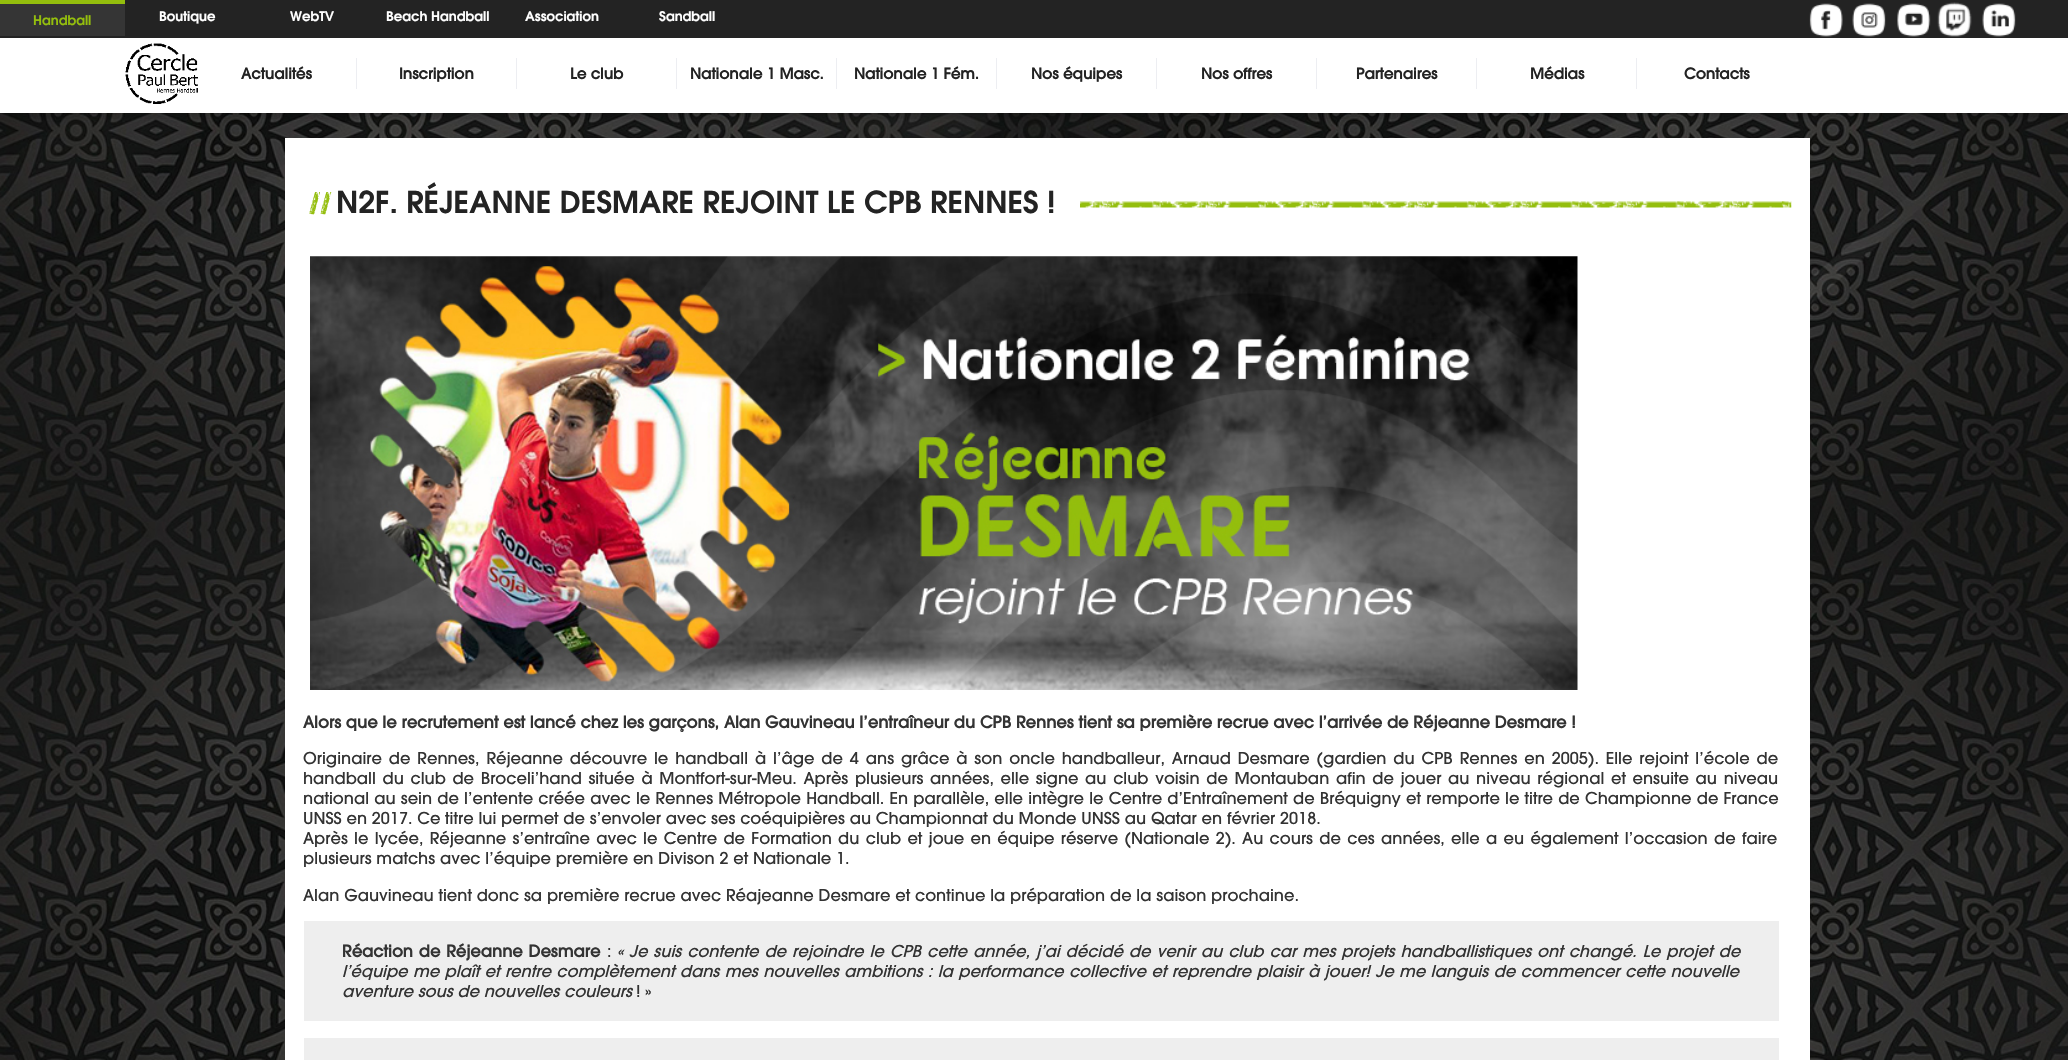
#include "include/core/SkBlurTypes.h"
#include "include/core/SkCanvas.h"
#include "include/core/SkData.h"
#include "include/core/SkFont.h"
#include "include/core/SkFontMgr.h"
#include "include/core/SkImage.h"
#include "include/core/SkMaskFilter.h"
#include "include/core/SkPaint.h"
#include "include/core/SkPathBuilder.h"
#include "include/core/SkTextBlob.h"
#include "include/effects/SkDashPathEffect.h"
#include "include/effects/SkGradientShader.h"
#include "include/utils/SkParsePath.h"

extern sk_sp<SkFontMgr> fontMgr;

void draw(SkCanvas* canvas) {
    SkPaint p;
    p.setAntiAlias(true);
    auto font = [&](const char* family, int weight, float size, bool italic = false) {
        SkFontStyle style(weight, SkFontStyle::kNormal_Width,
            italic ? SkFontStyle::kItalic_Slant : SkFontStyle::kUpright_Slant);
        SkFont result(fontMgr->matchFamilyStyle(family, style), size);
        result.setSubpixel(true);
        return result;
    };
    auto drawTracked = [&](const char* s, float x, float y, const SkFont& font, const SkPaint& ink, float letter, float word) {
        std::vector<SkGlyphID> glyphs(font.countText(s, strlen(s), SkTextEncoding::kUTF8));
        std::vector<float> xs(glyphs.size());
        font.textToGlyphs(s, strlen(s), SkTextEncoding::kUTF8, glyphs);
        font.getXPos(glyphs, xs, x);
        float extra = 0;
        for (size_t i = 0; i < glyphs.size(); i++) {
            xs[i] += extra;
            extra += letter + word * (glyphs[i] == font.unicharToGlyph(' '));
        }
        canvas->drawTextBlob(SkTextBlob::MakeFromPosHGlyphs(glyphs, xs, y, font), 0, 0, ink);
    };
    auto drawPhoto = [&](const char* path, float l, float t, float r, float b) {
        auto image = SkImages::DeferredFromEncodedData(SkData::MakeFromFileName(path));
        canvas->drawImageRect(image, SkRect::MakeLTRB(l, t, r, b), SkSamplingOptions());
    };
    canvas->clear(0xFFFFFFFF);
    drawPhoto("media/1.png", 0, 113, 2068, 1060);
    p.setColor(0x1A000000);
    p.setMaskFilter(SkMaskFilter::MakeBlur(kNormal_SkBlurStyle, 3));
    canvas->drawRect(SkRect::MakeLTRB(3, 8, 2066, 115), p);
    p.setMaskFilter(nullptr);
    p.setColor(0x1F000000);
    p.setMaskFilter(SkMaskFilter::MakeBlur(kNormal_SkBlurStyle, 6));
    canvas->drawRect(SkRect::MakeLTRB(0, 1, 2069, 114), p);
    p.setMaskFilter(nullptr);
    p.setColor(0x6B000000);
    p.setMaskFilter(SkMaskFilter::MakeBlur(kNormal_SkBlurStyle, 6));
    canvas->drawRect(SkRect::MakeLTRB(8, 9, 2061, 106), p);
    p.setMaskFilter(nullptr);
    {
        const struct { float l, t, r, b; SkColor color; } items[] = {
            {0, 38, 2068, 113, 0xFFFFFFFF},
            {0, 0, 2068, 38, 0xFF232323},
            {0, 4, 125, 36, 0xFF353535},
            {0, 0, 125, 4, 0xFF94BE0D},
        };
        for (auto [l, t, r, b, color] : items) {
            p.setColor(color);
            canvas->drawRect(SkRect::MakeLTRB(l, t, r, b), p);
        }
    }
    auto font1 = font("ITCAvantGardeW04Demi", 600, 13.25f);
    canvas->drawString("Handball", 33, 25, font1, p);
    p.setColor(0xFFFFFFFF);
    {
        const struct { const char* s; float x, y; } items[] = {
            {"Boutique", 159, 21},
            {"WebTV", 290, 21},
            {"Beach Handball", 386, 21},
            {"Association", 525, 21},
            {"Sandball", 659, 21},
        };
        for (auto [s, x, y] : items) {
            canvas->drawString(s, x, y, font1, p);
        }
    }
    drawPhoto("media/2.png", 1809, 3, 1843, 37);
    drawPhoto("media/3.png", 1852, 3, 1886, 37);
    drawPhoto("media/4.png", 1897, 3, 1931, 37);
    drawPhoto("media/5.png", 1937, 2, 1972, 37);
    drawPhoto("media/6.png", 1982, 3, 2016, 37);
    drawPhoto("media/7.png", 125, 43, 198, 104);
    auto font2 = font("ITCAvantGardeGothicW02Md", 700, 15);
    p.setColor(0xFF232323);
    canvas->drawString("Actualités", 241, 79, font2, p);
    p.setColor(0xFFEDEEF2);
    canvas->drawRect(SkRect::MakeLTRB(356, 58, 357, 89), p);
    p.setColor(0xFF232323);
    canvas->drawString("Inscription", 399, 79, font2, p);
    p.setColor(0xFFEDEEF2);
    canvas->drawRect(SkRect::MakeLTRB(516, 58, 517, 89), p);
    p.setColor(0xFF232323);
    canvas->drawString("Le club", 570, 79, font2, p);
    p.setColor(0xFFEDEEF2);
    canvas->drawRect(SkRect::MakeLTRB(676, 58, 677, 89), p);
    p.setColor(0xFF232323);
    canvas->drawString("Nationale 1 Masc.", 690, 79, font2, p);
    p.setColor(0xFFEDEEF2);
    canvas->drawRect(SkRect::MakeLTRB(836, 58, 837, 89), p);
    p.setColor(0xFF232323);
    canvas->drawString("Nationale 1 Fém.", 854, 79, font2, p);
    p.setColor(0xFFEDEEF2);
    canvas->drawRect(SkRect::MakeLTRB(996, 58, 997, 89), p);
    p.setColor(0xFF232323);
    canvas->drawString("Nos équipes", 1031, 79, font2, p);
    p.setColor(0xFFEDEEF2);
    canvas->drawRect(SkRect::MakeLTRB(1156, 58, 1157, 89), p);
    p.setColor(0xFF232323);
    canvas->drawString("Nos offres", 1201, 79, font2, p);
    p.setColor(0xFFEDEEF2);
    canvas->drawRect(SkRect::MakeLTRB(1316, 58, 1317, 89), p);
    p.setColor(0xFF232323);
    canvas->drawString("Partenaires", 1356, 79, font2, p);
    p.setColor(0xFFEDEEF2);
    canvas->drawRect(SkRect::MakeLTRB(1476, 58, 1477, 89), p);
    p.setColor(0xFF232323);
    canvas->drawString("Médias", 1530, 79, font2, p);
    p.setColor(0xFFEDEEF2);
    canvas->drawRect(SkRect::MakeLTRB(1636, 58, 1637, 89), p);
    p.setColor(0xFF232323);
    canvas->drawString("Contacts", 1684, 79, font2, p);
    p.setColor(0xFFFFFFFF);
    canvas->drawRect(SkRect::MakeLTRB(285, 138, 1810, 1060), p);
    auto font3 = font("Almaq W", 400, 30);
    p.setColor(0xFF94BE0D);
    canvas->drawString("//", 309, 213, font3, p);
    auto font4 = font("ITCAvantGardeW04Demi", 600, 30);
    p.setColor(0xFF232323);
    canvas->drawString("N2F. RÉJEANNE DESMARE REJOINT LE CPB RENNES !", 336, 213, font4, p);
    drawPhoto("media/8.png", 1080, 201, 1792, 208);
    drawPhoto("media/9.png", 310, 256, 1578, 690);
    auto font5 = font("ITCAvantGardeGothicW02Md", 700, 16.25f);
    p.setColor(0xFF333333);
    canvas->drawString("Alors que le recrutement est lancé chez les garçons, Alan Gauvineau l’entraîneur du CPB Rennes tient sa première recrue avec l’arrivée de Réjeanne Desmare !", 303, 728, font5, p);
    auto font6 = font("ITCAvantGardeGothicW02Md", 500, 16.25f);
    drawTracked("Originaire de Rennes, Réjeanne découvre le handball à l’âge de 4 ans grâce à son oncle handballeur, Arnaud Desmare (gardien du CPB Rennes en 2005). Elle rejoint l’école de", 303, 764, font6, p, 0, 2.1f);
    drawTracked("handball du club de Broceli’hand située à Montfort-sur-Meu. Après plusieurs années, elle signe au club voisin de Montauban afin de jouer au niveau régional et ensuite au niveau", 303, 784, font6, p, 0, 1.85f);
    drawTracked("national au sein de l’entente créée avec le Rennes Métropole Handball. En parallèle, elle intègre le Centre d’Entraînement de Bréquigny et remporte le titre de Championne de France", 303, 804, font6, p, 0, 0.4f);
    canvas->drawString("UNSS en 2017. Ce titre lui permet de s’envoler avec ses coéquipières au Championnat du Monde UNSS au Qatar en février 2018.", 303, 824, font6, p);
    drawTracked("Après le lycée, Réjeanne s’entraîne avec le Centre de Formation du club et joue en équipe réserve (Nationale 2). Au cours de ces années, elle a eu également l’occasion de faire", 303, 844, font6, p, 0, 1.5f);
    canvas->drawString("plusieurs matchs avec l’équipe première en Divison 2 et Nationale 1.", 303, 864, font6, p);
    canvas->drawString("Alan Gauvineau tient donc sa première recrue avec Réajeanne Desmare et continue la préparation de la saison prochaine.", 303, 901, font6, p);
    p.setColor(0xFFEEEEEE);
    canvas->drawRect(SkRect::MakeLTRB(304, 921, 1779, 1021), p);
    p.setColor(0xFF333333);
    drawTracked("Réaction de Réjeanne Desmare", 342, 957, font5, p, 0, 1);
    canvas->drawString(":", 607, 957, font6, p);
    auto font7 = font("ITCAvantGardeGothicW02Md", 500, 16.25f, true);
    drawTracked("« Je suis contente de rejoindre le CPB cette année, j’ai décidé de venir au club car mes projets handballistiques ont changé. Le projet de", 617, 957, font7, p, 0, 1.2f);
    drawTracked("l’équipe me plaît et rentre complètement dans mes nouvelles ambitions : la performance collective et reprendre plaisir à jouer! Je me languis de commencer cette nouvelle", 342, 977, font7, p, 0, 0.6f);
    canvas->drawString("aventure sous de nouvelles couleurs", 342, 997, font7, p);
    canvas->drawString("! »", 636, 997, font6, p);
    p.setColor(0xFFEEEEEE);
    canvas->drawRect(SkRect::MakeLTRB(304, 1038, 1779, 1060), p);
}
